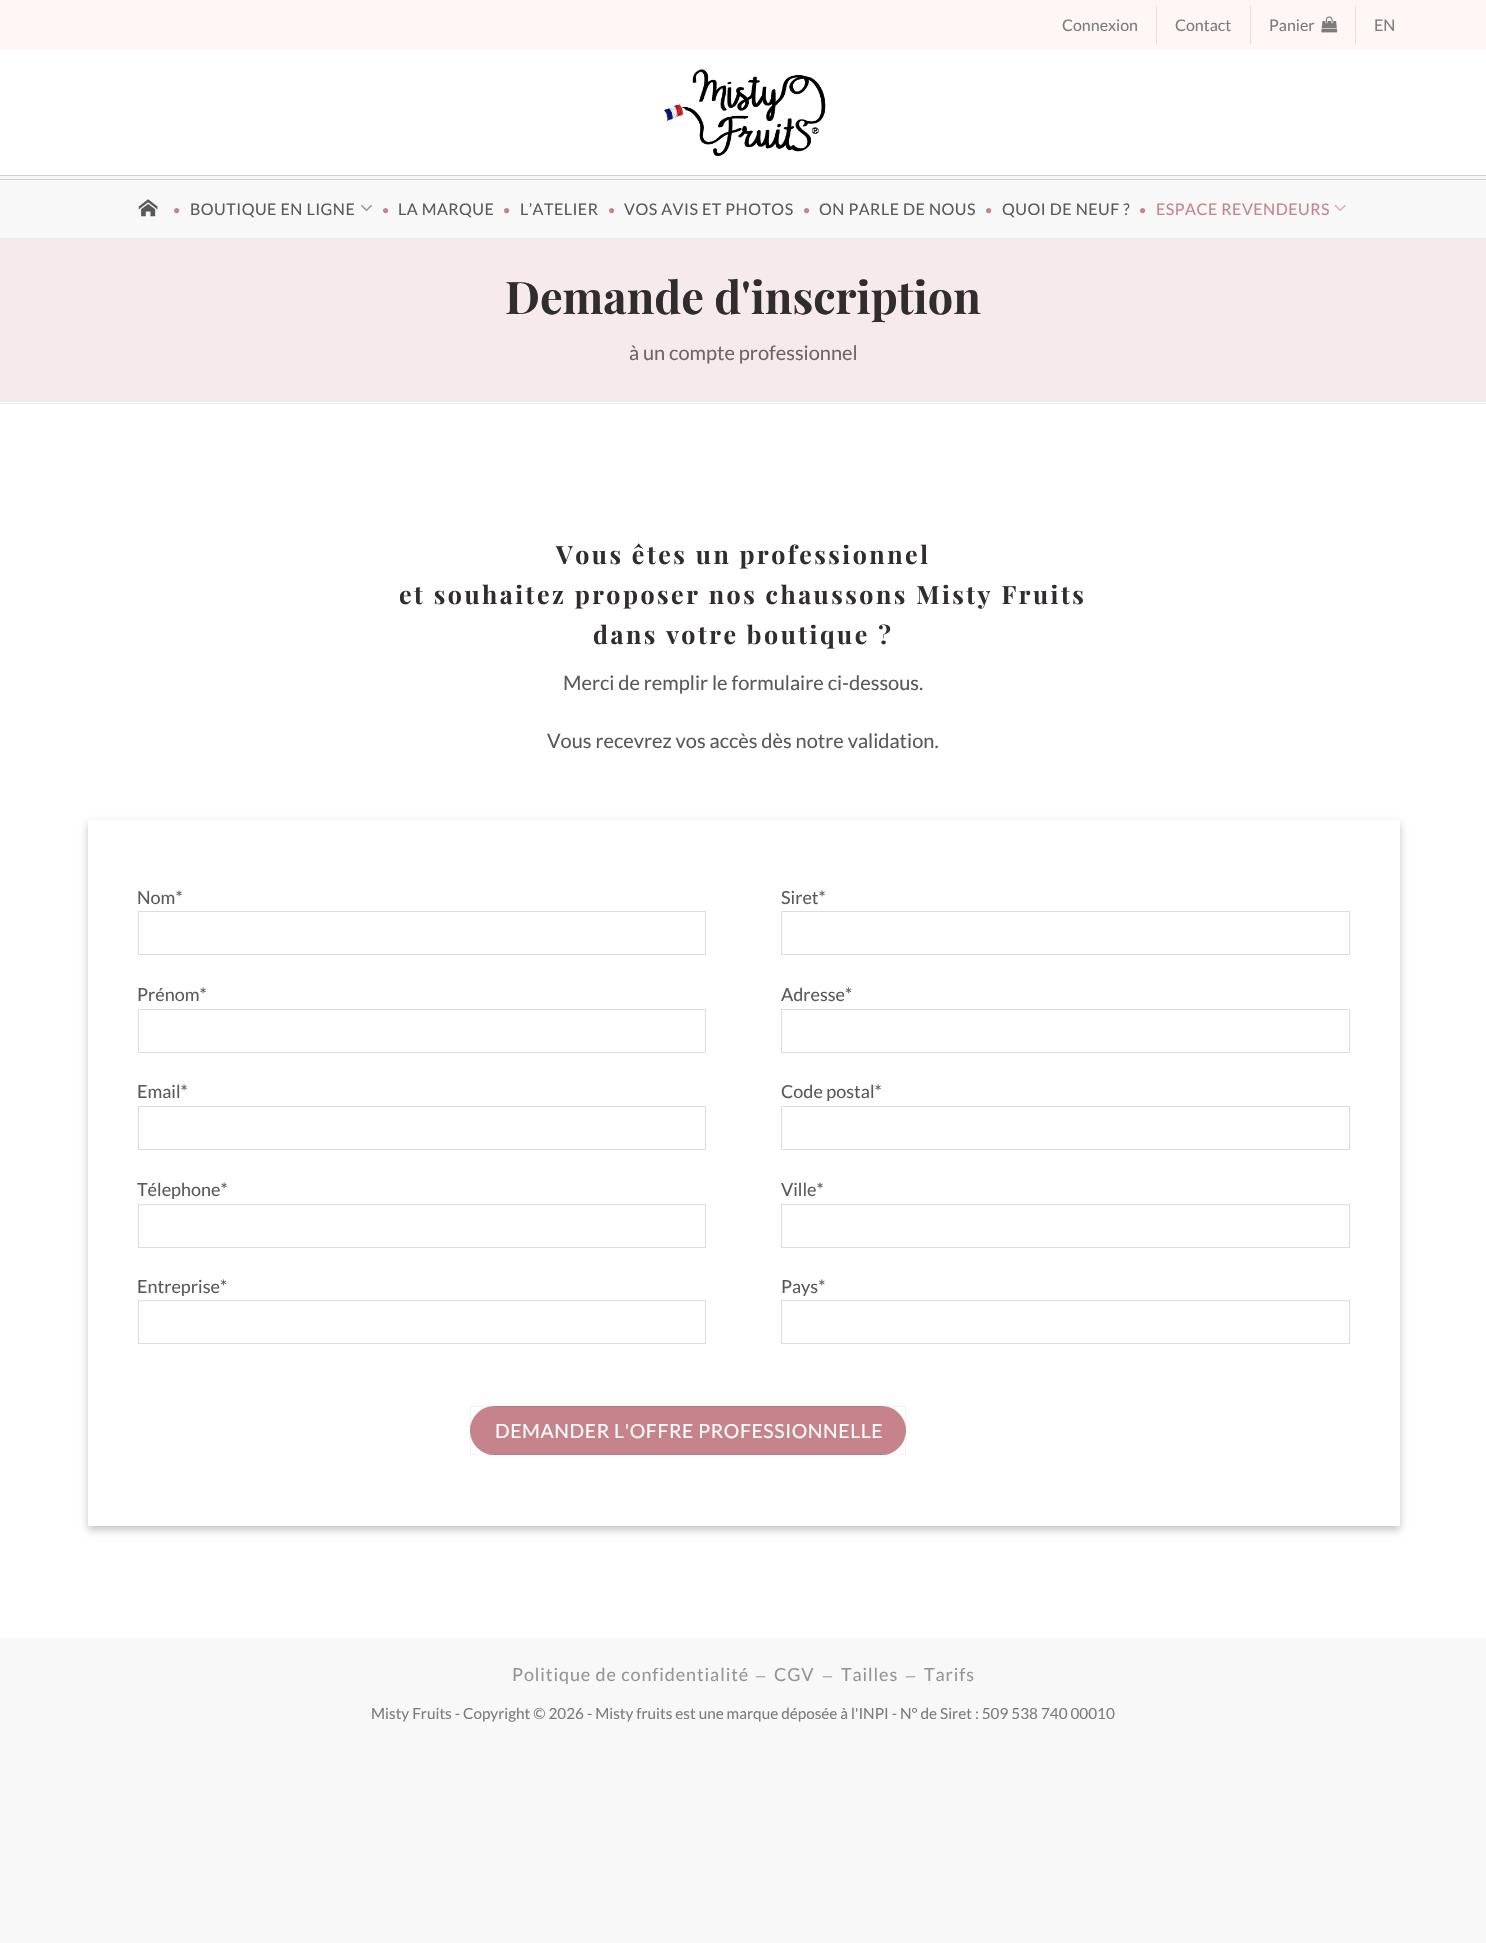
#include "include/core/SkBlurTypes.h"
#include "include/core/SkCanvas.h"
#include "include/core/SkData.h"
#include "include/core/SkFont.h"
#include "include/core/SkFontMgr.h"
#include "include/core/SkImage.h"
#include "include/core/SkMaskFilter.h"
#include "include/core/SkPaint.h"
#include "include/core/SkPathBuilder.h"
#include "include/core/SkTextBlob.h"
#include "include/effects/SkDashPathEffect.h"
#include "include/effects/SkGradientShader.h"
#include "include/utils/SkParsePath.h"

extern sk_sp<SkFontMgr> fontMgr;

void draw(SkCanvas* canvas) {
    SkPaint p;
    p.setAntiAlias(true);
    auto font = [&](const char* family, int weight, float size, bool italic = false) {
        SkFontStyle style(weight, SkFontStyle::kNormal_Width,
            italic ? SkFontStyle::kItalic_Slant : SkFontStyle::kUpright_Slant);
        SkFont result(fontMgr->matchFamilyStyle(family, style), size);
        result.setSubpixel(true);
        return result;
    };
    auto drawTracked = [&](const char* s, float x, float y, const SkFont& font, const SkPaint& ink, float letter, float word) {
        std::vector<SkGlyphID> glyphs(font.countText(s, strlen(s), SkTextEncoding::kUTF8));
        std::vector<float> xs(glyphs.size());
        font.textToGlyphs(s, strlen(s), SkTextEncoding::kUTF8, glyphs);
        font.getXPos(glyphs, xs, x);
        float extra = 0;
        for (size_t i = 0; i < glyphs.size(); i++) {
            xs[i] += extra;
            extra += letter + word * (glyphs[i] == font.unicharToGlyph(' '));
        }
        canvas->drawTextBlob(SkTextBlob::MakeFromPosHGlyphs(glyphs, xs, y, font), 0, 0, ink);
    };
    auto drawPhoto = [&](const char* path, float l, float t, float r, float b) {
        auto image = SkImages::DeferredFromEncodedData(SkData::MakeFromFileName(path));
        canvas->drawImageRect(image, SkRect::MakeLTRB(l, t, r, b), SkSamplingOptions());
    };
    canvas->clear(0xFFF8F8F8);
    p.setColor(0xFFFFFFFF);
    canvas->drawRect(SkRect::MakeLTRB(0, 50, 1486, 1638), p);
    p.setColor(0xFFFFF6F6);
    canvas->drawRect(SkRect::MakeLTRB(0, 0, 1486, 50), p);
    auto font1 = font("Lato", 400, 16);
    p.setColor(0xFF7C7C7C);
    canvas->drawString("Connexion", 1062, 31, font1, p);
    p.setColor(0xFFE6DDDD);
    canvas->drawRect(SkRect::MakeLTRB(1156, 6, 1157, 44), p);
    p.setColor(0xFF7C7C7C);
    canvas->drawString("Contact", 1175, 31, font1, p);
    p.setColor(0xFFE6DDDD);
    canvas->drawRect(SkRect::MakeLTRB(1250, 6, 1251, 44), p);
    p.setColor(0xFF7C7C7C);
    canvas->drawString("Panier", 1269, 31, font1, p);
    drawPhoto("media/1.png", 1321, 16, 1338, 33);
    p.setColor(0xFFE6DDDD);
    canvas->drawRect(SkRect::MakeLTRB(1355, 6, 1356, 44), p);
    p.setColor(0xFF7C7C7C);
    canvas->drawString("EN", 1374, 31, font1, p);
    drawPhoto("media/2.png", 664, 69, 826, 156);
    {
        const struct { float l, t, r, b; SkColor color; } items[] = {
            {0, 176, 1486, 238, 0xFFF8F8F8},
            {0, 175, 1486, 176, 0xFFD0D0D0},
            {0, 179, 1486, 180, 0xFFD0D0D0},
        };
        for (auto [l, t, r, b, color] : items) {
            p.setColor(color);
            canvas->drawRect(SkRect::MakeLTRB(l, t, r, b), p);
        }
    }
    drawPhoto("media/3.png", 138, 199, 158, 217);
    auto font2 = font("Liberation Sans", 400, 12);
    p.setColor(0xFFC7838C);
    drawTracked("●", 173, 214, font2, p, 0.5f, 0);
    p.setColor(0xFF595959);
    drawTracked("BOUTIQUE EN LIGNE", 190, 215, font1, p, 0.5f, 0);
    drawPhoto("media/4.png", 360, 204, 372, 212);
    p.setColor(0xFFC7838C);
    drawTracked("●", 382, 214, font2, p, 0.5f, 0);
    p.setColor(0xFF595959);
    drawTracked("LA MARQUE", 398, 215, font1, p, 0.5f, 0);
    p.setColor(0xFFC7838C);
    drawTracked("●", 503, 214, font2, p, 0.5f, 0);
    p.setColor(0xFF595959);
    drawTracked("L’ATELIER", 520, 215, font1, p, 0.5f, 0);
    p.setColor(0xFFC7838C);
    drawTracked("●", 608, 214, font2, p, 0.5f, 0);
    p.setColor(0xFF595959);
    drawTracked("VOS AVIS ET PHOTOS", 624, 215, font1, p, 0.5f, 0);
    p.setColor(0xFFC7838C);
    drawTracked("●", 803, 214, font2, p, 0.5f, 0);
    p.setColor(0xFF595959);
    drawTracked("ON PARLE DE NOUS", 819, 215, font1, p, 0.5f, 0);
    p.setColor(0xFFC7838C);
    drawTracked("●", 985, 214, font2, p, 0.5f, 0);
    p.setColor(0xFF595959);
    drawTracked("QUOI DE NEUF ?", 1002, 215, font1, p, 0.5f, 0);
    p.setColor(0xFFC7838C);
    drawTracked("●", 1139, 214, font2, p, 0.5f, 0);
    drawTracked("ESPACE REVENDEURS", 1156, 215, font1, p, 0.5f, 0);
    drawPhoto("media/5.png", 1334, 204, 1346, 212);
    {
        const struct { float l, t, r, b; SkColor color; } items[] = {
            {0, 238, 1486, 239, 0xFFECECEC},
            {0, 401, 1486, 402, 0xFFECECEC},
            {0, 239, 1486, 401, 0xFFF7EAEC},
        };
        for (auto [l, t, r, b, color] : items) {
            p.setColor(color);
            canvas->drawRect(SkRect::MakeLTRB(l, t, r, b), p);
        }
    }
    auto font3 = font("Playfair Display", 700, 45);
    p.setColor(0xFF312D2E);
    canvas->drawString("Demande d'inscription", 505, 314, font3, p);
    auto font4 = font("Lato", 400, 20);
    p.setColor(0xFF6C6667);
    canvas->drawString("à un compte professionnel", 629, 360, font4, p);
    p.setColor(0xFFEBEBEB);
    canvas->drawRect(SkRect::MakeLTRB(0, 403, 1486, 404), p);
    auto font5 = font("Playfair Display", 700, 25);
    p.setColor(0xFF312D2E);
    {
        const struct { const char* s; float x, y; } items[] = {
            {"Vous êtes un professionnel", 556, 564},
            {"et souhaitez proposer nos chaussons Misty Fruits", 399, 604},
            {"dans votre boutique ?", 593, 644},
        };
        for (auto [s, x, y] : items) {
            drawTracked(s, x, y, font5, p, 2.5f, 0);
        }
    }
    p.setColor(0xFF595959);
    canvas->drawString("Merci de remplir le formulaire ci-dessous.", 563, 690, font4, p);
    canvas->drawString("Vous recevrez vos accès dès notre validation.", 547, 748, font4, p);
    canvas->save();
    canvas->clipPath(SkPathBuilder(SkPathFillType::kEvenOdd).moveTo(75, 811).lineTo(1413, 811).lineTo(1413, 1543).lineTo(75, 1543).close().moveTo(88, 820).lineTo(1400, 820).lineTo(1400, 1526).lineTo(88, 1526).close().detach(), true);
    p.setColor(0x3B000000);
    p.setMaskFilter(SkMaskFilter::MakeBlur(kNormal_SkBlurStyle, 4));
    canvas->drawRect(SkRect::MakeLTRB(88, 824, 1400, 1530), p);
    p.setMaskFilter(nullptr);
    canvas->restore();
    auto font6 = font("Lato", 400, 18);
    p.setColor(0xFF595959);
    canvas->drawString("Nom*", 137, 904, font6, p);
    p.setStyle(SkPaint::kStroke_Style);
    p.setStrokeWidth(1);
    p.setColor(0xFFDDDDDD);
    canvas->drawRect(SkRect::MakeLTRB(138.5f, 911.5f, 705.5f, 954.5f), p);
    p.setStyle(SkPaint::kFill_Style);
    p.setColor(0xFF595959);
    canvas->drawString("Prénom*", 137, 1001, font6, p);
    p.setStyle(SkPaint::kStroke_Style);
    p.setColor(0xFFDDDDDD);
    canvas->drawRect(SkRect::MakeLTRB(138.5f, 1009.5f, 705.5f, 1052.5f), p);
    p.setStyle(SkPaint::kFill_Style);
    p.setColor(0xFF595959);
    canvas->drawString("Email*", 137, 1098, font6, p);
    p.setStyle(SkPaint::kStroke_Style);
    p.setColor(0xFFDDDDDD);
    canvas->drawRect(SkRect::MakeLTRB(138.5f, 1106.5f, 705.5f, 1149.5f), p);
    p.setStyle(SkPaint::kFill_Style);
    p.setColor(0xFF595959);
    canvas->drawString("Télephone*", 137, 1196, font6, p);
    p.setStyle(SkPaint::kStroke_Style);
    p.setColor(0xFFDDDDDD);
    canvas->drawRect(SkRect::MakeLTRB(138.5f, 1204.5f, 705.5f, 1247.5f), p);
    p.setStyle(SkPaint::kFill_Style);
    p.setColor(0xFF595959);
    canvas->drawString("Entreprise*", 137, 1293, font6, p);
    p.setStyle(SkPaint::kStroke_Style);
    p.setColor(0xFFDDDDDD);
    canvas->drawRect(SkRect::MakeLTRB(138.5f, 1300.5f, 705.5f, 1343.5f), p);
    p.setStyle(SkPaint::kFill_Style);
    p.setColor(0xFF595959);
    canvas->drawString("Siret*", 781, 904, font6, p);
    p.setStyle(SkPaint::kStroke_Style);
    p.setColor(0xFFDDDDDD);
    canvas->drawRect(SkRect::MakeLTRB(781.5f, 911.5f, 1349.5f, 954.5f), p);
    p.setStyle(SkPaint::kFill_Style);
    p.setColor(0xFF595959);
    canvas->drawString("Adresse*", 781, 1001, font6, p);
    p.setStyle(SkPaint::kStroke_Style);
    p.setColor(0xFFDDDDDD);
    canvas->drawRect(SkRect::MakeLTRB(781.5f, 1009.5f, 1349.5f, 1052.5f), p);
    p.setStyle(SkPaint::kFill_Style);
    p.setColor(0xFF595959);
    canvas->drawString("Code postal*", 781, 1098, font6, p);
    p.setStyle(SkPaint::kStroke_Style);
    p.setColor(0xFFDDDDDD);
    canvas->drawRect(SkRect::MakeLTRB(781.5f, 1106.5f, 1349.5f, 1149.5f), p);
    p.setStyle(SkPaint::kFill_Style);
    p.setColor(0xFF595959);
    canvas->drawString("Ville*", 781, 1196, font6, p);
    p.setStyle(SkPaint::kStroke_Style);
    p.setColor(0xFFDDDDDD);
    canvas->drawRect(SkRect::MakeLTRB(781.5f, 1204.5f, 1349.5f, 1247.5f), p);
    p.setStyle(SkPaint::kFill_Style);
    p.setColor(0xFF595959);
    canvas->drawString("Pays*", 781, 1293, font6, p);
    p.setStyle(SkPaint::kStroke_Style);
    p.setColor(0xFFDDDDDD);
    canvas->drawRect(SkRect::MakeLTRB(781.5f, 1300.5f, 1349.5f, 1343.5f), p);
    p.setStyle(SkPaint::kFill_Style);
    p.setColor(0xFFC7838C);
    canvas->drawRoundRect(SkRect::MakeLTRB(470, 1406, 906, 1455), 24.5f, 24.5f, p);
    p.setStyle(SkPaint::kStroke_Style);
    p.setColor(0x0D000000);
    canvas->drawRect(SkRect::MakeLTRB(470.5f, 1406.5f, 905.5f, 1454.5f), p);
    auto font7 = font("Lato", 400, 19.4f);
    p.setStyle(SkPaint::kFill_Style);
    p.setColor(0xFFFFFFFF);
    drawTracked("DEMANDER L'OFFRE PROFESSIONNELLE", 495, 1438, font7, p, 0.6f, 0);
    p.setColor(0xFF959595);
    drawTracked("Politique de confidentialité", 512, 1681, font6, p, 0.9f, 0);
    auto font8 = font("Liberation Serif", 400, 18);
    drawTracked("–", 756, 1681, font8, p, 0.9f, 0);
    drawTracked("CGV", 774, 1681, font6, p, 0.9f, 0);
    drawTracked("–", 823, 1681, font8, p, 0.9f, 0);
    drawTracked("Tailles", 841, 1681, font6, p, 0.9f, 0);
    drawTracked("–", 906, 1681, font8, p, 0.9f, 0);
    drawTracked("Tarifs", 924, 1681, font6, p, 0.9f, 0);
    auto font9 = font("Lato", 400, 15.3f);
    p.setColor(0xFF7C7C7C);
    canvas->drawString("Misty Fruits - Copyright © 2026 - Misty fruits est une marque déposée à l'INPI - N° de Siret : 509 538 740 00010", 371, 1719, font9, p);
}
